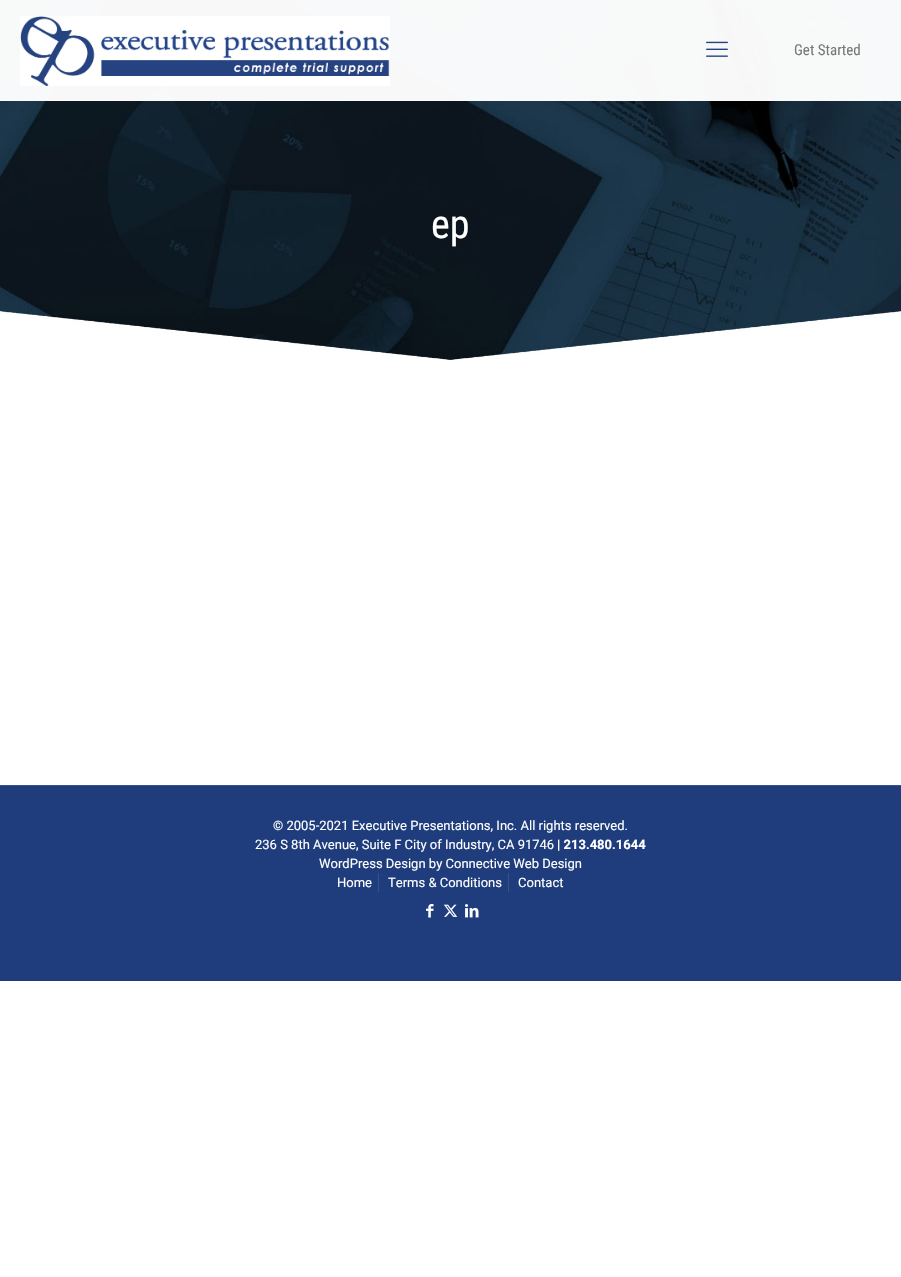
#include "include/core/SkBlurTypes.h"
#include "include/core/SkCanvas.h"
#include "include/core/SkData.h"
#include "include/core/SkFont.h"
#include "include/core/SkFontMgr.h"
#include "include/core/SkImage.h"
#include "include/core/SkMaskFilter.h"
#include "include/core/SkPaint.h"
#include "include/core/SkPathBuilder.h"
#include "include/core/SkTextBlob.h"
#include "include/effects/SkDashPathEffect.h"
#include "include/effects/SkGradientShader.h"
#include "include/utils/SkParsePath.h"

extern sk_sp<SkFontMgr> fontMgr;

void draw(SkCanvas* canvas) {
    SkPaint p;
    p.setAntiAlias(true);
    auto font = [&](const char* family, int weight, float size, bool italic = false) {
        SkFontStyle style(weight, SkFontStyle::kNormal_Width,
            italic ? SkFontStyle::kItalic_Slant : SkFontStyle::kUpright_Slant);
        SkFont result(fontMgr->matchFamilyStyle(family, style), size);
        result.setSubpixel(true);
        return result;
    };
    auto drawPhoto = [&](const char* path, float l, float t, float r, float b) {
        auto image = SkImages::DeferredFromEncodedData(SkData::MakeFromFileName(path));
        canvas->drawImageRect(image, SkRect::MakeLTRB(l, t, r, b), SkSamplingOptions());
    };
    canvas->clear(0xFFFFFFFF);
    drawPhoto("media/3.png", 0, 0, 901, 360);
    p.setColor(0xF7FFFFFF);
    canvas->drawRect(SkRect::MakeLTRB(0, 0, 901, 100), p);
    p.setColor(0xFFFAFAFB);
    canvas->drawRect(SkRect::MakeLTRB(0, 100, 901, 101), p);
    drawPhoto("media/1.png", 20, 16, 390, 86);
    drawPhoto("media/2.png", 706, 41, 728, 57);
    auto font1 = font("Roboto Condensed", 400, 15);
    p.setColor(0xFF787878);
    canvas->drawString("Get Started", 794, 55, font1, p);
    auto font2 = font("Roboto Condensed", 400, 40);
    p.setColor(0xFFFFFFFF);
    canvas->drawString("ep", 431, 238, font2, p);
    p.setColor(0xFF1F3D7D);
    canvas->drawRect(SkRect::MakeLTRB(0, 786, 901, 981), p);
    p.setColor(0xFF35508A);
    canvas->drawRect(SkRect::MakeLTRB(0, 785, 901, 786), p);
    auto font3 = font("Roboto", 400, 13);
    p.setColor(0xFFFFFFFF);
    canvas->drawString("© 2005-2021 Executive Presentations, Inc. All rights reserved.", 273, 830, font3, p);
    canvas->drawString("236 S 8th Avenue, Suite F City of Industry, CA 91746", 255, 849, font3, p);
    auto font4 = font("Roboto", 700, 13);
    canvas->drawString("| 213.480.1644", 557, 849, font4, p);
    canvas->drawString("WordPress Design by Connective Web Design", 319, 868, font3, p);
    p.setColor(0xFF35508A);
    canvas->drawRect(SkRect::MakeLTRB(378, 873, 379, 892), p);
    p.setColor(0xFFFFFFFF);
    canvas->drawString("Home", 337, 887, font3, p);
    p.setColor(0xFF35508A);
    canvas->drawRect(SkRect::MakeLTRB(508, 873, 509, 892), p);
    p.setColor(0xFFFFFFFF);
    canvas->drawString("Terms & Conditions", 388, 887, font3, p);
    canvas->drawString("Contact", 518, 887, font3, p);
    drawPhoto("media/4.png", 426, 904, 434, 918);
    drawPhoto("media/5.png", 443, 904, 458, 917);
    drawPhoto("media/6.png", 465, 904, 479, 918);
}
